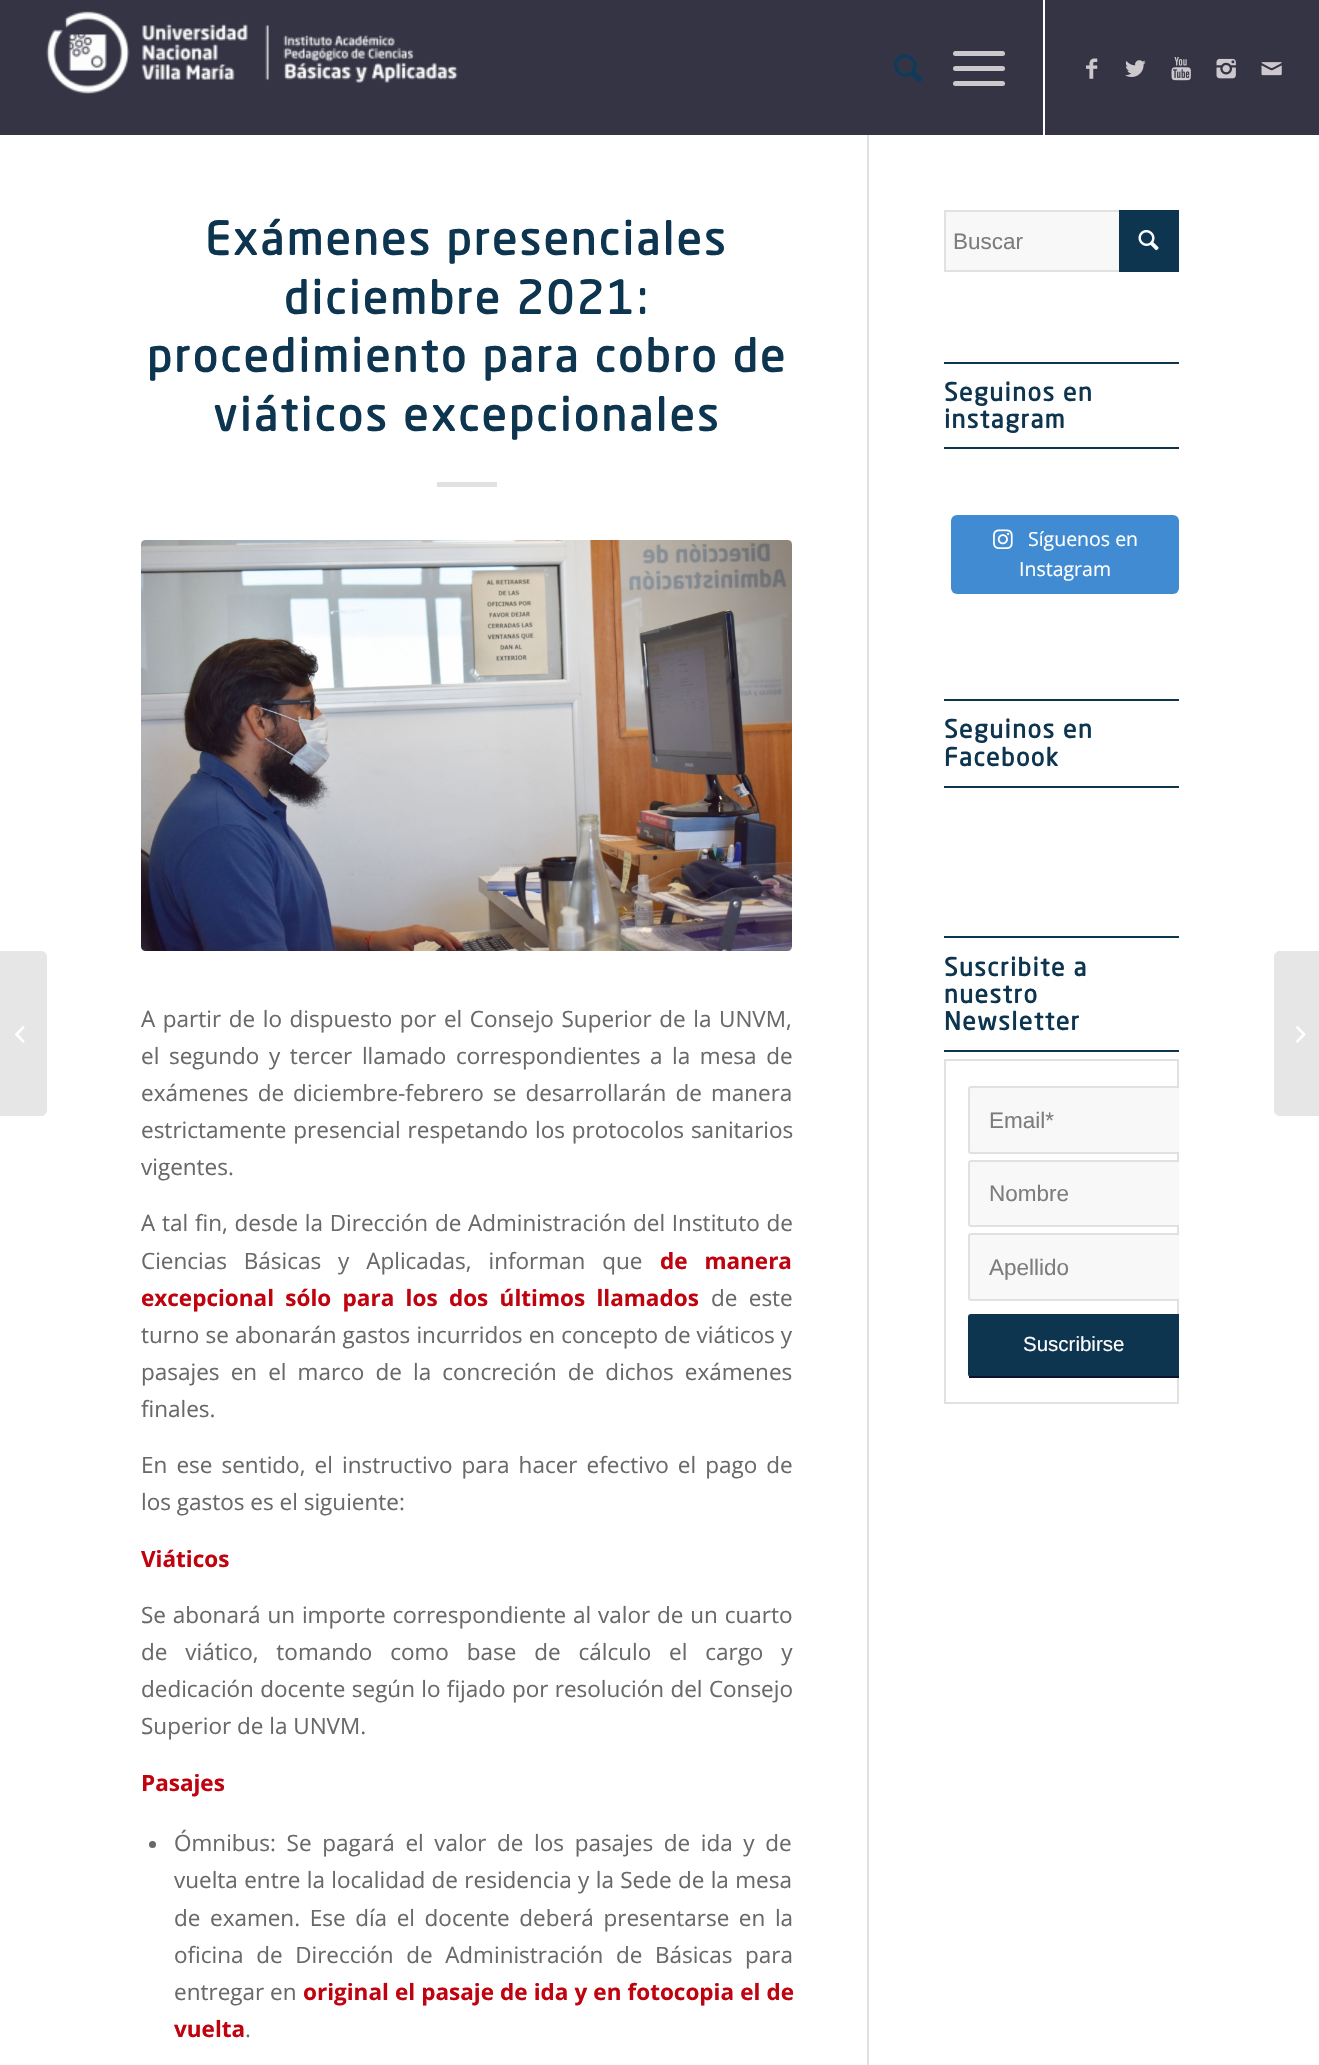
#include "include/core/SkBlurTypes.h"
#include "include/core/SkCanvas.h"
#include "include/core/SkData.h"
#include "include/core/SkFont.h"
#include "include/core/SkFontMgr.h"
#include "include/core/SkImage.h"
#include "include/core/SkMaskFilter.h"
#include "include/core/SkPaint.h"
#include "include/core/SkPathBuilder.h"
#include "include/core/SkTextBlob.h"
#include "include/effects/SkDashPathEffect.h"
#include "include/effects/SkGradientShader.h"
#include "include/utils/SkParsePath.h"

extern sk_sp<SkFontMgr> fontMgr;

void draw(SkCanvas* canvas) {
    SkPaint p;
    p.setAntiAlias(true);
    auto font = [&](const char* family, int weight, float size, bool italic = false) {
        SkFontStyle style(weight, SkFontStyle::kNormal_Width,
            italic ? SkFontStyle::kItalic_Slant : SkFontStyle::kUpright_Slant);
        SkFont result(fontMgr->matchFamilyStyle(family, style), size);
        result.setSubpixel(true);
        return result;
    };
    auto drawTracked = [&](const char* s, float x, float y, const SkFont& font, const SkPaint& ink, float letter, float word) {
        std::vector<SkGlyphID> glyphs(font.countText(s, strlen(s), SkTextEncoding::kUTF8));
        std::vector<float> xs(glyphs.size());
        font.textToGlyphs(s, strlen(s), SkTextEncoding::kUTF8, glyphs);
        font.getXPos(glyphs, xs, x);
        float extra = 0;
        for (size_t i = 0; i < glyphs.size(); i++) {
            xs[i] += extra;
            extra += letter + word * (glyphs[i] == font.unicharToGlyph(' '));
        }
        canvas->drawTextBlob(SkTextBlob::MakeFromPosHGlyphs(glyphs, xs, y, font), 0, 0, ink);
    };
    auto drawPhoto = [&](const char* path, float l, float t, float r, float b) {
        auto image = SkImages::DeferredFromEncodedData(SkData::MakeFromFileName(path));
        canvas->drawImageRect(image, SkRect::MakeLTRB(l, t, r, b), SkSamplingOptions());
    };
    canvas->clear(0xFFFFFFFF);
    p.setColor(0xFF353444);
    canvas->drawRect(SkRect::MakeLTRB(0, 0, 1319, 135), p);
    drawPhoto("media/1.png", 46, 11, 458, 94);
    p.setColor(0xFFFFFFFF);
    canvas->drawRect(SkRect::MakeLTRB(1043, 0, 1045, 135), p);
    drawPhoto("media/2.png", 894, 54, 923, 83);
    p.setColor(0xFFCCC8CC);
    canvas->drawRoundRect(SkRect::MakeLTRB(953, 66, 1005, 71), 2.5f, 2.5f, p);
    canvas->drawRoundRect(SkRect::MakeLTRB(953, 51, 1005, 56), 2.5f, 2.5f, p);
    canvas->drawRoundRect(SkRect::MakeLTRB(953, 81, 1005, 86), 2.5f, 2.5f, p);
    drawPhoto("media/3.png", 1086, 58, 1098, 79);
    drawPhoto("media/4.png", 1125, 60, 1146, 77);
    drawPhoto("media/5.png", 1171, 57, 1191, 81);
    drawPhoto("media/6.png", 1216, 58, 1236, 79);
    drawPhoto("media/7.png", 1261, 62, 1282, 76);
    p.setColor(0xFFE6E6E6);
    canvas->drawPath(SkPathBuilder().moveTo(0, 951).lineTo(41, 951).cubicTo(44.5f, 951, 47, 953.5f, 47, 957).lineTo(47, 1110).cubicTo(47, 1113.5f, 44.5f, 1116, 41, 1116).lineTo(0, 1116).close().detach(), p);
    drawPhoto("media/8.png", 15, 1026, 25, 1043);
    p.setColor(0xFFE1E1E1);
    canvas->drawRect(SkRect::MakeLTRB(867, 135, 869, 2065), p);
    auto font1 = font("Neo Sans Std", 700, 45);
    p.setColor(0xFF0D3550);
    {
        const struct { const char* s; float x, y; } items[] = {
            {"Exámenes presenciales", 205, 255},
            {"diciembre 2021:", 284, 314},
            {"procedimiento para cobro de", 147, 372},
            {"viáticos excepcionales", 213, 431},
        };
        for (auto [s, x, y] : items) {
            drawTracked(s, x, y, font1, p, 3, 0);
        }
    }
    p.setColor(0xFFE1E1E1);
    canvas->drawRect(SkRect::MakeLTRB(437, 482, 497, 487), p);
    drawPhoto("media/9.png", 141, 540, 792, 951);
    auto font2 = font("Open Sans", 400, 22.5f);
    p.setColor(0xFF696969);
    drawTracked("A partir de lo dispuesto por el Consejo Superior de la UNVM,", 141, 1027, font2, p, 0, 1.75f);
    drawTracked("el segundo y tercer llamado correspondientes a la mesa de", 141, 1064, font2, p, 0, 3.75f);
    drawTracked("exámenes de diciembre-febrero se desarrollarán de manera", 141, 1101, font2, p, 0, 3.25f);
    drawTracked("estrictamente presencial respetando los protocolos sanitarios", 141, 1138, font2, p, 0, 1);
    canvas->drawString("vigentes.", 141, 1175, font2, p);
    drawTracked("A tal fin, desde la Dirección de Administración del Instituto de", 141, 1231, font2, p, 0, 0.9f);
    drawTracked("Ciencias Básicas y Aplicadas, informan que", 141, 1269, font2, p, 0, 11);
    auto font3 = font("Open Sans", 700, 22.5f);
    p.setColor(0xFFBF0410);
    drawTracked("de manera", 660, 1269, font3, p, 0, 11);
    drawTracked("excepcional sólo para los dos últimos llamados", 141, 1306, font3, p, 0, 5.5f);
    p.setColor(0xFF696969);
    drawTracked("de este", 711, 1306, font2, p, 0, 5.5f);
    drawTracked("turno se abonarán gastos incurridos en concepto de viáticos y", 141, 1343, font2, p, 0, 0.25f);
    drawTracked("pasajes en el marco de la concreción de dichos exámenes", 141, 1380, font2, p, 0, 5.25f);
    canvas->drawString("finales.", 141, 1417, font2, p);
    drawTracked("En ese sentido, el instructivo para hacer efectivo el pago de", 141, 1473, font2, p, 0, 3.25f);
    canvas->drawString("los gastos es el siguiente:", 141, 1510, font2, p);
    p.setColor(0xFFBF0410);
    canvas->drawString("Viáticos", 141, 1567, font3, p);
    p.setColor(0xFF696969);
    drawTracked("Se abonará un importe correspondiente al valor de un cuarto", 141, 1623, font2, p, 0, 1);
    drawTracked("de viático, tomando como base de cálculo el cargo y", 141, 1660, font2, p, 0, 12);
    drawTracked("dedicación docente según lo fijado por resolución del Consejo", 141, 1697, font2, p, 0, 0.5f);
    canvas->drawString("Superior de la UNVM.", 141, 1734, font2, p);
    p.setColor(0xFFBF0410);
    canvas->drawString("Pasajes", 141, 1791, font3, p);
    p.setColor(0xFF696969);
    canvas->drawCircle(152.5f, 1844.5f, 3.5f, p);
    drawTracked("Ómnibus: Se pagará el valor de los pasajes de ida y de", 174, 1851, font2, p, 0, 4.75f);
    drawTracked("vuelta entre la localidad de residencia y la Sede de la mesa", 174, 1888, font2, p, 0, 0.5f);
    drawTracked("de examen. Ese día el docente deberá presentarse en la", 174, 1926, font2, p, 0, 3.75f);
    drawTracked("oficina de Dirección de Administración de Básicas para", 174, 1963, font2, p, 0, 6.75f);
    canvas->drawString("entregar en", 174, 2000, font2, p);
    p.setColor(0xFFBF0410);
    drawTracked("original el pasaje de ida y en fotocopia el de", 303, 2000, font3, p, 0, 0.25f);
    canvas->drawString("vuelta", 174, 2037, font3, p);
    p.setColor(0xFF696969);
    canvas->drawString(".", 245, 2037, font2, p);
    p.setColor(0xFFF8F8F8);
    canvas->drawRect(SkRect::MakeLTRB(946, 212, 1119, 270), p);
    p.setStyle(SkPaint::kStroke_Style);
    p.setStrokeWidth(2);
    p.setColor(0xFFE1E1E1);
    canvas->drawRect(SkRect::MakeLTRB(945, 211, 1178, 271), p);
    auto font4 = font("Liberation Sans", 400, 22.5f);
    p.setStyle(SkPaint::kFill_Style);
    p.setColor(0xFF7D7D7D);
    canvas->drawString("Buscar", 953, 249, font4, p);
    p.setColor(0xFF0D3550);
    canvas->drawRect(SkRect::MakeLTRB(1119, 210, 1179, 272), p);
    drawPhoto("media/10.png", 1138, 230, 1159, 251);
    canvas->drawRect(SkRect::MakeLTRB(944, 362, 1179, 364), p);
    canvas->drawRect(SkRect::MakeLTRB(944, 447, 1179, 449), p);
    auto font5 = font("Neo Sans Std", 700, 24.75f);
    drawTracked("Seguinos en", 944, 401, font5, p, 1.5f, 0);
    drawTracked("instagram", 944, 428, font5, p, 1.5f, 0);
    p.setColor(0xFF408BD1);
    canvas->drawRoundRect(SkRect::MakeLTRB(951, 515, 1179, 594), 6, 6, p);
    drawPhoto("media/11.png", 993, 529, 1013, 549);
    auto font6 = font("Open Sans", 400, 19.5f);
    p.setColor(0xFFFFFFFF);
    canvas->drawString("Síguenos en", 1028, 546, font6, p);
    canvas->drawString("Instagram", 1019, 576, font6, p);
    p.setColor(0xFF0D3550);
    canvas->drawRect(SkRect::MakeLTRB(944, 699, 1179, 701), p);
    canvas->drawRect(SkRect::MakeLTRB(944, 786, 1179, 788), p);
    drawTracked("Seguinos en", 944, 738, font5, p, 1.5f, 0);
    drawTracked("Facebook", 944, 766, font5, p, 1.5f, 0);
    canvas->drawRect(SkRect::MakeLTRB(944, 936, 1179, 938), p);
    canvas->drawRect(SkRect::MakeLTRB(944, 1050, 1179, 1052), p);
    {
        const struct { const char* s; float x, y; } items[] = {
            {"Suscribite a", 944, 976},
            {"nuestro", 944, 1003},
            {"Newsletter", 944, 1030},
        };
        for (auto [s, x, y] : items) {
            drawTracked(s, x, y, font5, p, 1.5f, 0);
        }
    }
    p.setStyle(SkPaint::kStroke_Style);
    p.setColor(0xFFE1E1E1);
    canvas->drawRect(SkRect::MakeLTRB(945, 1060, 1178, 1403), p);
    canvas->save();
    canvas->clipRect(SkRect::MakeLTRB(869, 135, 1179, 1524));
    p.setStyle(SkPaint::kFill_Style);
    p.setColor(0xFFF8F8F8);
    canvas->drawRoundRect(SkRect::MakeLTRB(969, 1087, 1180, 1153), 2, 2, p);
    p.setStyle(SkPaint::kStroke_Style);
    p.setColor(0xFFE1E1E1);
    canvas->drawRoundRect(SkRect::MakeLTRB(969, 1087, 1180, 1153), 2, 2, p);
    canvas->restore();
    p.setStyle(SkPaint::kFill_Style);
    p.setColor(0xFF7D7D7D);
    canvas->drawString("Email*", 989, 1128, font4, p);
    canvas->save();
    canvas->clipRect(SkRect::MakeLTRB(869, 135, 1179, 1524));
    p.setColor(0xFFF8F8F8);
    canvas->drawRoundRect(SkRect::MakeLTRB(969, 1161, 1180, 1226), 2, 2, p);
    p.setStyle(SkPaint::kStroke_Style);
    p.setColor(0xFFE1E1E1);
    canvas->drawRoundRect(SkRect::MakeLTRB(969, 1161, 1180, 1226), 2, 2, p);
    canvas->restore();
    p.setStyle(SkPaint::kFill_Style);
    p.setColor(0xFF7D7D7D);
    canvas->drawString("Nombre", 989, 1201, font4, p);
    canvas->save();
    canvas->clipRect(SkRect::MakeLTRB(869, 135, 1179, 1524));
    p.setColor(0xFFF8F8F8);
    canvas->drawRoundRect(SkRect::MakeLTRB(969, 1234, 1180, 1300), 2, 2, p);
    p.setStyle(SkPaint::kStroke_Style);
    p.setColor(0xFFE1E1E1);
    canvas->drawRoundRect(SkRect::MakeLTRB(969, 1234, 1180, 1300), 2, 2, p);
    canvas->restore();
    p.setStyle(SkPaint::kFill_Style);
    p.setColor(0xFF7D7D7D);
    canvas->drawString("Apellido", 989, 1275, font4, p);
    canvas->save();
    canvas->clipRect(SkRect::MakeLTRB(869, 135, 1179, 1524));
    p.setColor(0xFF0D3550);
    canvas->drawRoundRect(SkRect::MakeLTRB(968, 1314, 1181, 1377), 3, 3, p);
    canvas->restore();
    p.setColor(0xFF0B1330);
    canvas->drawRect(SkRect::MakeLTRB(969, 1376, 1179, 1378), p);
    auto font7 = font("Liberation Sans", 400, 20.5f);
    p.setColor(0xFFFFFFFF);
    canvas->drawString("Suscribirse", 1023, 1351, font7, p);
    p.setColor(0xFFE6E6E6);
    canvas->drawPath(SkPathBuilder().moveTo(1280, 951).lineTo(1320, 951).lineTo(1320, 1116).lineTo(1280, 1116).cubicTo(1276.5f, 1116, 1274, 1113.5f, 1274, 1110).lineTo(1274, 957).cubicTo(1274, 953.5f, 1276.5f, 951, 1280, 951).close().detach(), p);
    drawPhoto("media/12.png", 1296, 1026, 1306, 1043);
}
